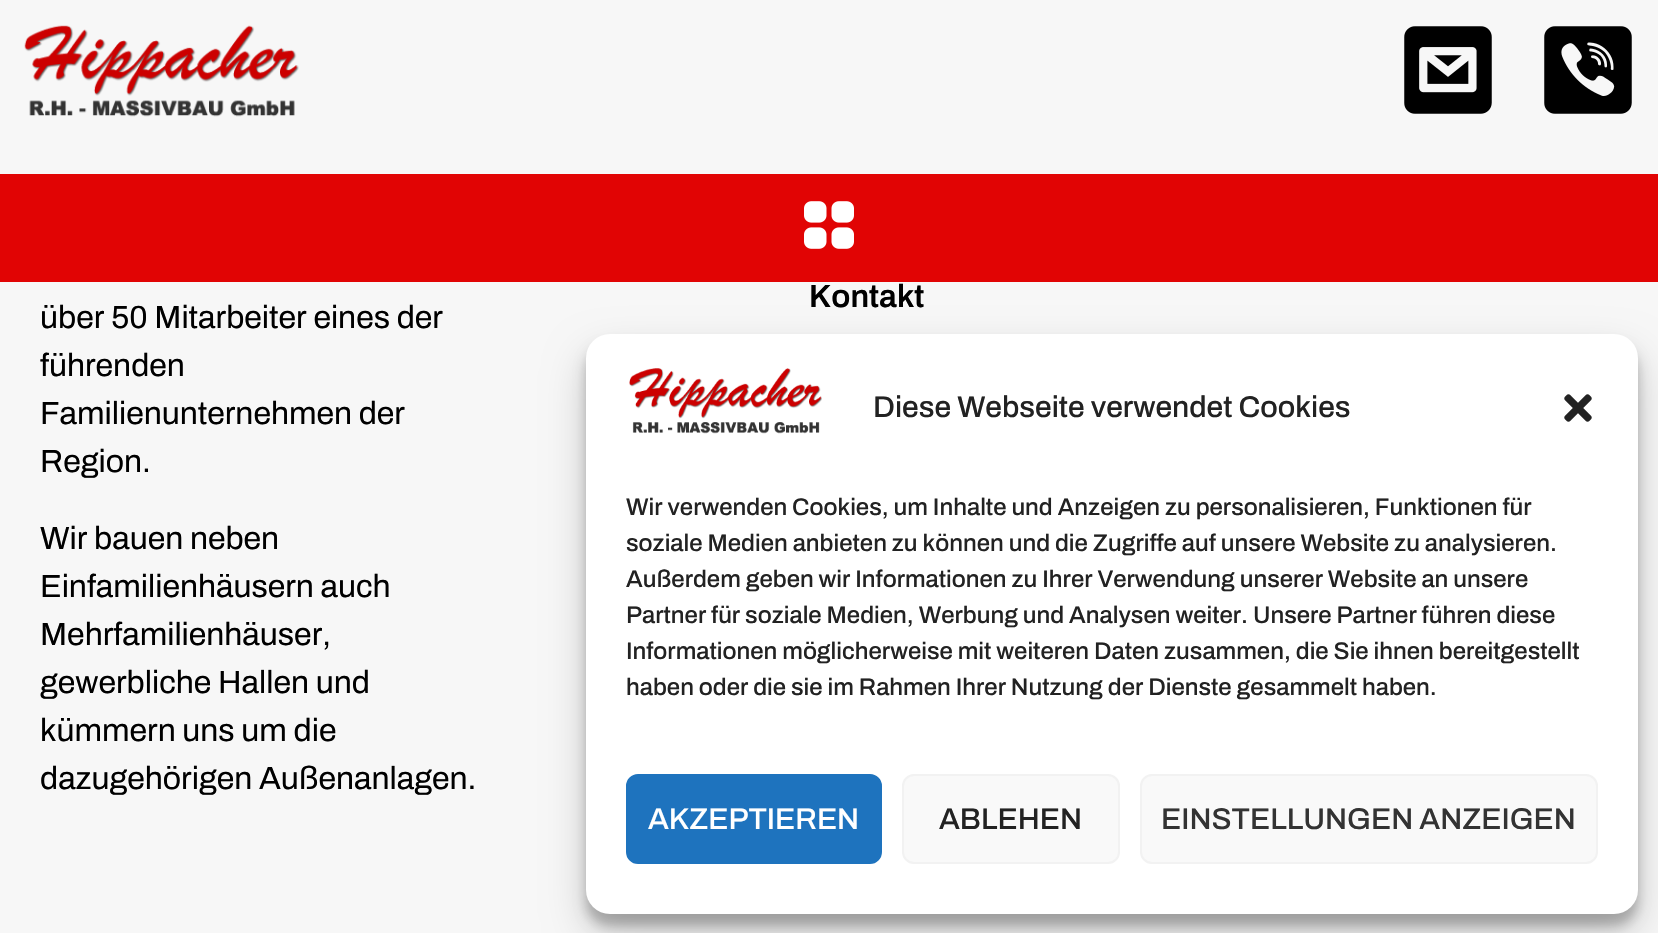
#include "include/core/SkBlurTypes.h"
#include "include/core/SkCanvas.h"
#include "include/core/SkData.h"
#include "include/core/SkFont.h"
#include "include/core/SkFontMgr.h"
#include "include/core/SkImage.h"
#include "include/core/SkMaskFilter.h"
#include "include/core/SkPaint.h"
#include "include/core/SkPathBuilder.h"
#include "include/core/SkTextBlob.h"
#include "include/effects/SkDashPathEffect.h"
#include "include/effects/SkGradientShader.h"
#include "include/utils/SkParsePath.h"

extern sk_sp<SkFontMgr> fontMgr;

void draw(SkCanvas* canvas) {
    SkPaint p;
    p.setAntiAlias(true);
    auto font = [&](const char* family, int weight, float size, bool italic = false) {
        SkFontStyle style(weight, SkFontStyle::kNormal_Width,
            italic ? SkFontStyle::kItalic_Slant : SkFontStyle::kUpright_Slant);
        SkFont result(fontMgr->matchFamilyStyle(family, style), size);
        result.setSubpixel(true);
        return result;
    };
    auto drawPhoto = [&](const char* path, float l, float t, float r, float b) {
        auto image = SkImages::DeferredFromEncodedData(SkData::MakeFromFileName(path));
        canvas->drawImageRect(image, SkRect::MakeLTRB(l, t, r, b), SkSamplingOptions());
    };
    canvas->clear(0xFFF7F7F7);
    drawPhoto("media/1.png", 24, 25, 299, 117);
    drawPhoto("media/2.png", 1404, 26, 1492, 114);
    drawPhoto("media/3.png", 1544, 26, 1632, 114);
    p.setColor(0xFFE10404);
    canvas->drawRect(SkRect::MakeLTRB(0, 174, 1658, 282), p);
    drawPhoto("media/4.png", 804, 201, 854, 249);
    auto font1 = font("Archivo", 600, 32);
    p.setColor(0xFF000000);
    canvas->drawString("Kontakt", 809, 307, font1, p);
    auto font2 = font("Archivo", 400, 32);
    {
        const struct { const char* s; float x, y; } items[] = {
            {"über 50 Mitarbeiter eines der", 40, 328},
            {"führenden", 40, 376},
            {"Familienunternehmen der", 40, 424},
            {"Region.", 40, 472},
            {"Wir bauen neben", 40, 549},
            {"Einfamilienhäusern auch", 40, 597},
            {"Mehrfamilienhäuser,", 40, 645},
            {"gewerbliche Hallen und", 40, 693},
            {"kümmern uns um die", 40, 741},
            {"dazugehörigen Außenanlagen.", 40, 789},
        };
        for (auto [s, x, y] : items) {
            canvas->drawString(s, x, y, font2, p);
        }
    }
    p.setColor(0x3B000000);
    p.setMaskFilter(SkMaskFilter::MakeBlur(kNormal_SkBlurStyle, 6));
    canvas->drawRoundRect(SkRect::MakeLTRB(586, 346, 1638, 926), 24, 24, p);
    p.setMaskFilter(nullptr);
    p.setColor(0x30000000);
    p.setMaskFilter(SkMaskFilter::MakeBlur(kNormal_SkBlurStyle, 20));
    canvas->drawRoundRect(SkRect::MakeLTRB(586, 354, 1638, 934), 24, 24, p);
    p.setMaskFilter(nullptr);
    p.setColor(0xFFFFFFFF);
    canvas->drawRoundRect(SkRect::MakeLTRB(586, 334, 1638, 914), 24, 24, p);
    drawPhoto("media/5.png", 629, 368, 822, 434);
    auto font3 = font("Archivo", 500, 30);
    p.setColor(0xFF222222);
    canvas->drawString("Diese Webseite verwendet Cookies", 873, 417, font3, p);
    drawPhoto("media/6.png", 1564, 394, 1592, 422);
    auto font4 = font("Archivo", 500, 24);
    {
        const struct { const char* s; float x, y; } items[] = {
            {"Wir verwenden Cookies, um Inhalte und Anzeigen zu personalisieren, Funktionen für", 626, 515},
            {"soziale Medien anbieten zu können und die Zugriffe auf unsere Website zu analysieren.", 626, 551},
            {"Außerdem geben wir Informationen zu Ihrer Verwendung unserer Website an unsere", 626, 587},
            {"Partner für soziale Medien, Werbung und Analysen weiter. Unsere Partner führen diese", 626, 623},
            {"Informationen möglicherweise mit weiteren Daten zusammen, die Sie ihnen bereitgestellt", 626, 659},
            {"haben oder die sie im Rahmen Ihrer Nutzung der Dienste gesammelt haben.", 626, 695},
        };
        for (auto [s, x, y] : items) {
            canvas->drawString(s, x, y, font4, p);
        }
    }
    p.setColor(0xFF1E73BE);
    canvas->drawRoundRect(SkRect::MakeLTRB(627, 775, 881, 863), 11, 11, p);
    p.setStyle(SkPaint::kStroke_Style);
    p.setStrokeWidth(2);
    canvas->drawRoundRect(SkRect::MakeLTRB(627, 775, 881, 863), 11, 11, p);
    p.setStyle(SkPaint::kFill_Style);
    p.setColor(0xFFFFFFFF);
    canvas->drawString("AKZEPTIEREN", 648, 829, font3, p);
    p.setColor(0xFFF9F9F9);
    canvas->drawRoundRect(SkRect::MakeLTRB(903, 775, 1119, 863), 11, 11, p);
    p.setStyle(SkPaint::kStroke_Style);
    p.setColor(0xFFF2F2F2);
    canvas->drawRoundRect(SkRect::MakeLTRB(903, 775, 1119, 863), 11, 11, p);
    p.setStyle(SkPaint::kFill_Style);
    p.setColor(0xFF222222);
    canvas->drawString("ABLEHEN", 939, 829, font3, p);
    p.setColor(0xFFF9F9F9);
    canvas->drawRoundRect(SkRect::MakeLTRB(1141, 775, 1597, 863), 11, 11, p);
    p.setStyle(SkPaint::kStroke_Style);
    p.setColor(0xFFF2F2F2);
    canvas->drawRoundRect(SkRect::MakeLTRB(1141, 775, 1597, 863), 11, 11, p);
    p.setStyle(SkPaint::kFill_Style);
    p.setColor(0xFF333333);
    canvas->drawString("EINSTELLUNGEN ANZEIGEN", 1161, 829, font3, p);
}
